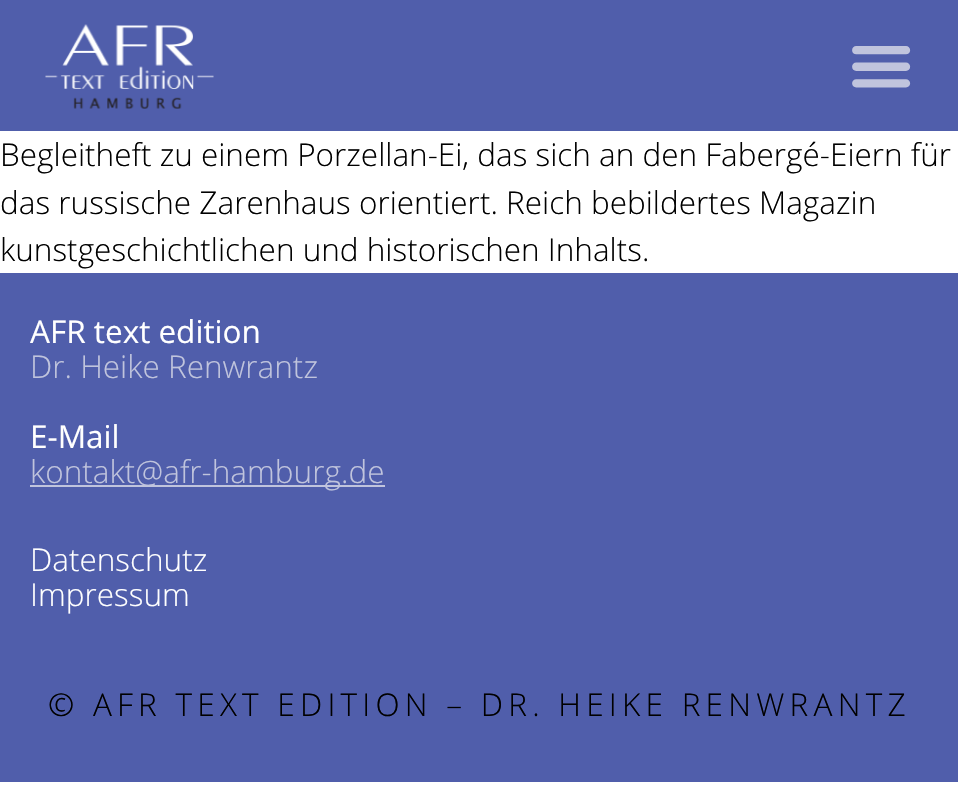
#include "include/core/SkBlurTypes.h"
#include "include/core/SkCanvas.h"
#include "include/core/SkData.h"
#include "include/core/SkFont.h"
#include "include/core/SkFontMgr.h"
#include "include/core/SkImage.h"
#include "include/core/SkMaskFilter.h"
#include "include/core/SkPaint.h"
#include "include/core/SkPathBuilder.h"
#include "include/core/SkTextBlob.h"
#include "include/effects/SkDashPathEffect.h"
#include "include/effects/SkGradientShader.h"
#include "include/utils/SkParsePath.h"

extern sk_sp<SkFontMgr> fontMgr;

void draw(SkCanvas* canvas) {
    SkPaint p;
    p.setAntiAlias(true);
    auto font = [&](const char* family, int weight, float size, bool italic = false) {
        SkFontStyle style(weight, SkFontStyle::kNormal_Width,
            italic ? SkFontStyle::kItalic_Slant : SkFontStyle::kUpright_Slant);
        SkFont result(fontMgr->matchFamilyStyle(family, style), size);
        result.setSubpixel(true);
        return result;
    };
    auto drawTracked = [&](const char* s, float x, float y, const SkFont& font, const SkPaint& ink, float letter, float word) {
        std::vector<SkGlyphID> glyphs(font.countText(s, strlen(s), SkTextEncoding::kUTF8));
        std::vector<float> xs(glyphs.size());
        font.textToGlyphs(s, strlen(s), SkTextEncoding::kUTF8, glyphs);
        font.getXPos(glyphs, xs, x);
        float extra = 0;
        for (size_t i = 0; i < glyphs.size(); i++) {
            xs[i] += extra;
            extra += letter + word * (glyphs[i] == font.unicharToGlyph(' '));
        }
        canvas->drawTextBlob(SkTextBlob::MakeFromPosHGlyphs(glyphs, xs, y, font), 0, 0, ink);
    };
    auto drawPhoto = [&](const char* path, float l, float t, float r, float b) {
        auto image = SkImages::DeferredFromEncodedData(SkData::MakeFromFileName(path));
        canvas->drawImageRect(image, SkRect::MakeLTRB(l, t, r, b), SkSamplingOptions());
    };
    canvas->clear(0xFFFFFFFF);
    p.setColor(0xFF505EAB);
    canvas->drawRect(SkRect::MakeLTRB(0, 0, 958, 131), p);
    drawPhoto("media/1.png", 45, 24, 214, 109);
    drawPhoto("media/2.png", 852, 46, 911, 88);
    auto font1 = font("Open Sans", 300, 31.5f);
    p.setColor(0xFF000000);
    {
        const struct { const char* s; float x, y; } items[] = {
            {"Begleitheft zu einem Porzellan-Ei, das sich an den Fabergé-Eiern für", 0, 166},
            {"das russische Zarenhaus orientiert. Reich bebildertes Magazin", 0, 214},
            {"kunstgeschichtlichen und historischen Inhalts.", 0, 261},
        };
        for (auto [s, x, y] : items) {
            canvas->drawString(s, x, y, font1, p);
        }
    }
    p.setColor(0xFF505EAB);
    canvas->drawRect(SkRect::MakeLTRB(0, 273, 958, 782), p);
    auto font2 = font("Open Sans", 400, 31.5f);
    p.setColor(0xFFFFFFFF);
    canvas->drawString("AFR text edition", 30, 343, font2, p);
    p.setColor(0xFFC0C4DD);
    canvas->drawString("Dr. Heike Renwrantz", 30, 378, font1, p);
    p.setColor(0xFFFFFFFF);
    canvas->drawString("E-Mail", 30, 448, font2, p);
    p.setColor(0xFFC0C4DD);
    canvas->drawRect(SkRect::MakeLTRB(30, 485, 385, 487), p);
    canvas->drawString("kontakt@afr-hamburg.de", 30, 483, font1, p);
    p.setColor(0xFFFFFFFF);
    canvas->drawString("Datenschutz", 30, 571, font1, p);
    canvas->drawString("Impressum", 30, 606, font1, p);
    p.setColor(0xFF000000);
    drawTracked("© AFR TEXT EDITION – DR. HEIKE RENWRANTZ", 48, 716, font1, p, 5.25f, 0);
}
